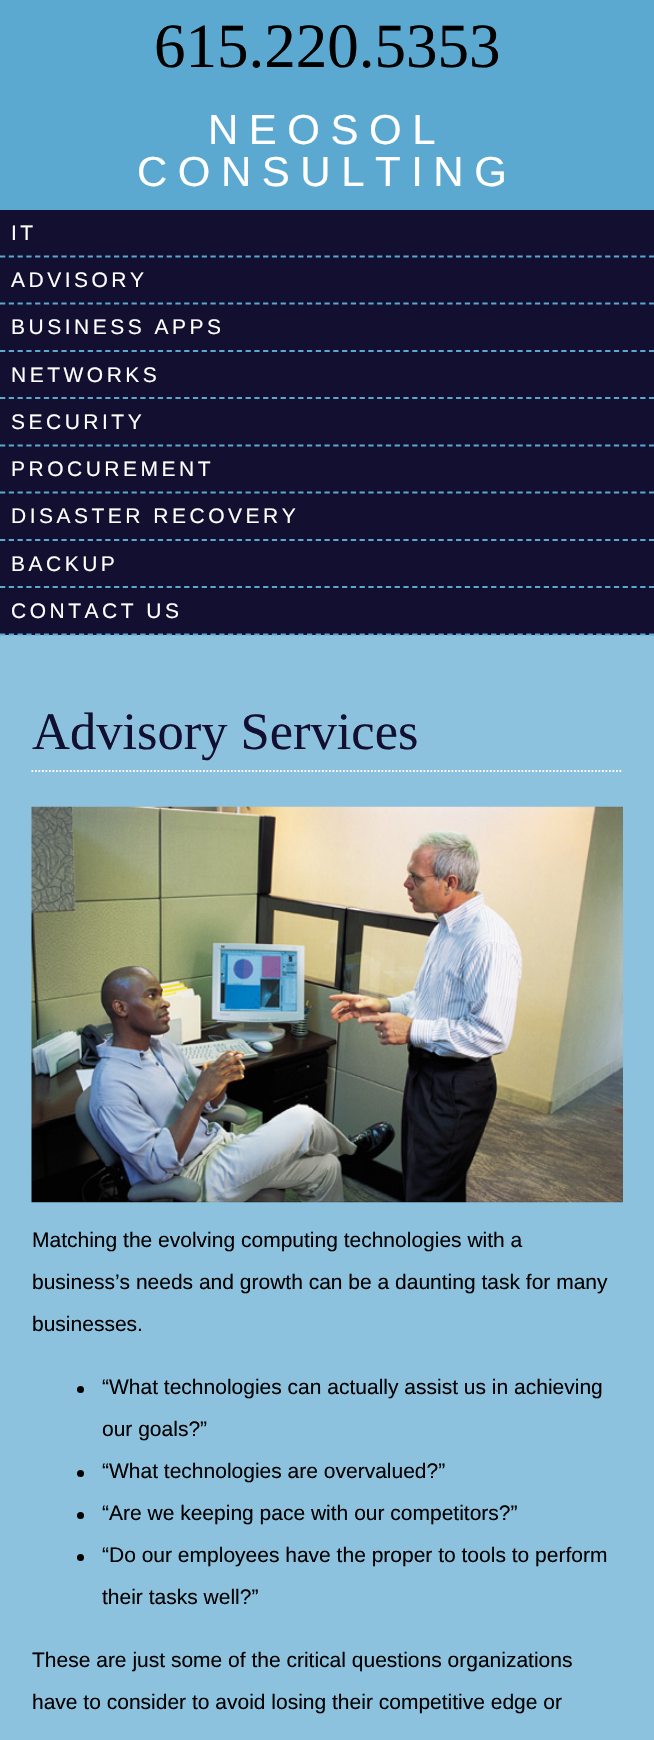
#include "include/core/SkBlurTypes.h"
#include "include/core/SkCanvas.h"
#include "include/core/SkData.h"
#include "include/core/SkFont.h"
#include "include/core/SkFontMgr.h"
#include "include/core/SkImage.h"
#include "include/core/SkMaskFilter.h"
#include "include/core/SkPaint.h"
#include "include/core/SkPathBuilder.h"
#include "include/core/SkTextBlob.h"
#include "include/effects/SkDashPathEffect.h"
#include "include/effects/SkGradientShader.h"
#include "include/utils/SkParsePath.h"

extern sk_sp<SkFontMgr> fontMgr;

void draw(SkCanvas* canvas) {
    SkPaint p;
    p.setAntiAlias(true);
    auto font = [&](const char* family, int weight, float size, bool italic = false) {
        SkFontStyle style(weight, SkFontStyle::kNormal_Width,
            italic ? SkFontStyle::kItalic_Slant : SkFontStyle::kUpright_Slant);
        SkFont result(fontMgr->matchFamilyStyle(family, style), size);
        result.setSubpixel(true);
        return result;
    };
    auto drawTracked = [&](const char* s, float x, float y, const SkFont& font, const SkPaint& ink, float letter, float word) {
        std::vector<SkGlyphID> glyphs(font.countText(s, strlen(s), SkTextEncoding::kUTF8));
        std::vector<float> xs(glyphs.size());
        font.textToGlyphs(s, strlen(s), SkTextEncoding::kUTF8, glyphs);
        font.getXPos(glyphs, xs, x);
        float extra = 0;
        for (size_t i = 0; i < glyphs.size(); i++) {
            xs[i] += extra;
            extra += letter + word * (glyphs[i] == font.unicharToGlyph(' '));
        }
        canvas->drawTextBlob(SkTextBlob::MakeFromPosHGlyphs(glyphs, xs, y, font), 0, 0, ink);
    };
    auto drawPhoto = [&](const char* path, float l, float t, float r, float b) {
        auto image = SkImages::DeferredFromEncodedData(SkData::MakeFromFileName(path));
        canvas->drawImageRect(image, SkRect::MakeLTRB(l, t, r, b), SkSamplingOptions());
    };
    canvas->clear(0xFF5BA9D0);
    auto font1 = font("Liberation Serif", 400, 63);
    p.setColor(0xFF000000);
    canvas->drawString("615.220.5353", 154, 67, font1, p);
    auto font2 = font("Liberation Sans", 400, 42);
    p.setColor(0xFFFFFFFF);
    drawTracked("NEOSOL", 208, 144, font2, p, 10.5f, 0);
    drawTracked("CONSULTING", 137, 186, font2, p, 10.5f, 0);
    p.setColor(0xFF120F31);
    canvas->drawRect(SkRect::MakeLTRB(0, 210, 654, 635), p);
    p.setStyle(SkPaint::kStroke_Style);
    p.setStrokeWidth(1.8f);
    p.setColor(0xFF5BA9D0);
    p.setPathEffect(SkDashPathEffect::Make({{5.25f, 3.52f}}, 0));
    canvas->drawPath(SkPathBuilder().moveTo(0, 256.5f).lineTo(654.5f, 256.5f).detach(), p);
    p.setPathEffect(nullptr);
    auto font3 = font("Liberation Sans", 400, 21);
    p.setStyle(SkPaint::kFill_Style);
    p.setColor(0xFFFFFFFF);
    drawTracked("IT", 11, 240, font3, p, 3.5f, 0);
    p.setStyle(SkPaint::kStroke_Style);
    p.setColor(0xFF5BA9D0);
    p.setPathEffect(SkDashPathEffect::Make({{5.25f, 3.52f}}, 0));
    canvas->drawPath(SkPathBuilder().moveTo(0, 303.5f).lineTo(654.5f, 303.5f).detach(), p);
    p.setPathEffect(nullptr);
    p.setStyle(SkPaint::kFill_Style);
    p.setColor(0xFFFFFFFF);
    drawTracked("ADVISORY", 11, 287, font3, p, 3.5f, 0);
    p.setStyle(SkPaint::kStroke_Style);
    p.setColor(0xFF5BA9D0);
    p.setPathEffect(SkDashPathEffect::Make({{5.25f, 3.52f}}, 0));
    canvas->drawPath(SkPathBuilder().moveTo(0, 351).lineTo(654.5f, 351).detach(), p);
    p.setPathEffect(nullptr);
    p.setStyle(SkPaint::kFill_Style);
    p.setColor(0xFFFFFFFF);
    drawTracked("BUSINESS APPS", 11, 334, font3, p, 3.5f, 0);
    p.setStyle(SkPaint::kStroke_Style);
    p.setColor(0xFF5BA9D0);
    p.setPathEffect(SkDashPathEffect::Make({{5.25f, 3.52f}}, 0));
    canvas->drawPath(SkPathBuilder().moveTo(0, 398).lineTo(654.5f, 398).detach(), p);
    p.setPathEffect(nullptr);
    p.setStyle(SkPaint::kFill_Style);
    p.setColor(0xFFFFFFFF);
    drawTracked("NETWORKS", 11, 382, font3, p, 3.5f, 0);
    p.setStyle(SkPaint::kStroke_Style);
    p.setColor(0xFF5BA9D0);
    p.setPathEffect(SkDashPathEffect::Make({{5.25f, 3.52f}}, 0));
    canvas->drawPath(SkPathBuilder().moveTo(0, 445.5f).lineTo(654.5f, 445.5f).detach(), p);
    p.setPathEffect(nullptr);
    p.setStyle(SkPaint::kFill_Style);
    p.setColor(0xFFFFFFFF);
    drawTracked("SECURITY", 11, 429, font3, p, 3.5f, 0);
    p.setStyle(SkPaint::kStroke_Style);
    p.setColor(0xFF5BA9D0);
    p.setPathEffect(SkDashPathEffect::Make({{5.25f, 3.52f}}, 0));
    canvas->drawPath(SkPathBuilder().moveTo(0, 492.5f).lineTo(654.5f, 492.5f).detach(), p);
    p.setPathEffect(nullptr);
    p.setStyle(SkPaint::kFill_Style);
    p.setColor(0xFFFFFFFF);
    drawTracked("PROCUREMENT", 11, 476, font3, p, 3.5f, 0);
    p.setStyle(SkPaint::kStroke_Style);
    p.setColor(0xFF5BA9D0);
    p.setPathEffect(SkDashPathEffect::Make({{5.25f, 3.52f}}, 0));
    canvas->drawPath(SkPathBuilder().moveTo(0, 540).lineTo(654.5f, 540).detach(), p);
    p.setPathEffect(nullptr);
    p.setStyle(SkPaint::kFill_Style);
    p.setColor(0xFFFFFFFF);
    drawTracked("DISASTER RECOVERY", 11, 523, font3, p, 3.5f, 0);
    p.setStyle(SkPaint::kStroke_Style);
    p.setColor(0xFF5BA9D0);
    p.setPathEffect(SkDashPathEffect::Make({{5.25f, 3.52f}}, 0));
    canvas->drawPath(SkPathBuilder().moveTo(0, 587).lineTo(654.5f, 587).detach(), p);
    p.setPathEffect(nullptr);
    p.setStyle(SkPaint::kFill_Style);
    p.setColor(0xFFFFFFFF);
    drawTracked("BACKUP", 11, 571, font3, p, 3.5f, 0);
    p.setColor(0xFF8DC2DE);
    canvas->drawRect(SkRect::MakeLTRB(0, 635, 654, 1740), p);
    p.setStyle(SkPaint::kStroke_Style);
    p.setColor(0xFF5BA9D0);
    p.setPathEffect(SkDashPathEffect::Make({{5.25f, 3.52f}}, 0));
    canvas->drawPath(SkPathBuilder().moveTo(0, 634.5f).lineTo(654.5f, 634.5f).detach(), p);
    p.setPathEffect(nullptr);
    p.setStyle(SkPaint::kFill_Style);
    p.setColor(0xFFFFFFFF);
    drawTracked("CONTACT US", 11, 618, font3, p, 3.5f, 0);
    p.setStyle(SkPaint::kStroke_Style);
    p.setPathEffect(SkDashPathEffect::Make({{1.75f, 1.75f}}, 0));
    canvas->drawPath(SkPathBuilder().moveTo(31.5f, 771).lineTo(623, 771).detach(), p);
    p.setPathEffect(nullptr);
    auto font4 = font("Liberation Serif", 400, 52.5f);
    p.setStyle(SkPaint::kFill_Style);
    p.setColor(0xFF120F31);
    canvas->drawString("Advisory Services", 32, 749, font4, p);
    drawPhoto("media/1.png", 31, 806, 623, 1203);
    p.setColor(0xFF000000);
    {
        const struct { const char* s; float x, y; } items[] = {
            {"Matching the evolving computing technologies with a", 32, 1247},
            {"business’s needs and growth can be a daunting task for many", 32, 1289},
            {"businesses.", 32, 1331},
        };
        for (auto [s, x, y] : items) {
            canvas->drawString(s, x, y, font3, p);
        }
    }
    canvas->drawCircle(80.5f, 1389.5f, 3.5f, p);
    canvas->drawString("“What technologies can actually assist us in achieving", 102, 1394, font3, p);
    canvas->drawString("our goals?”", 102, 1436, font3, p);
    canvas->drawCircle(80.5f, 1473.5f, 3.5f, p);
    canvas->drawString("“What technologies are overvalued?”", 102, 1478, font3, p);
    canvas->drawCircle(80.5f, 1515.5f, 3.5f, p);
    canvas->drawString("“Are we keeping pace with our competitors?”", 102, 1520, font3, p);
    canvas->drawCircle(80.5f, 1557.5f, 3.5f, p);
    {
        const struct { const char* s; float x, y; } items[] = {
            {"“Do our employees have the proper to tools to perform", 102, 1562},
            {"their tasks well?”", 102, 1604},
            {"These are just some of the critical questions organizations", 32, 1667},
            {"have to consider to avoid losing their competitive edge or", 32, 1709},
        };
        for (auto [s, x, y] : items) {
            canvas->drawString(s, x, y, font3, p);
        }
    }
}
